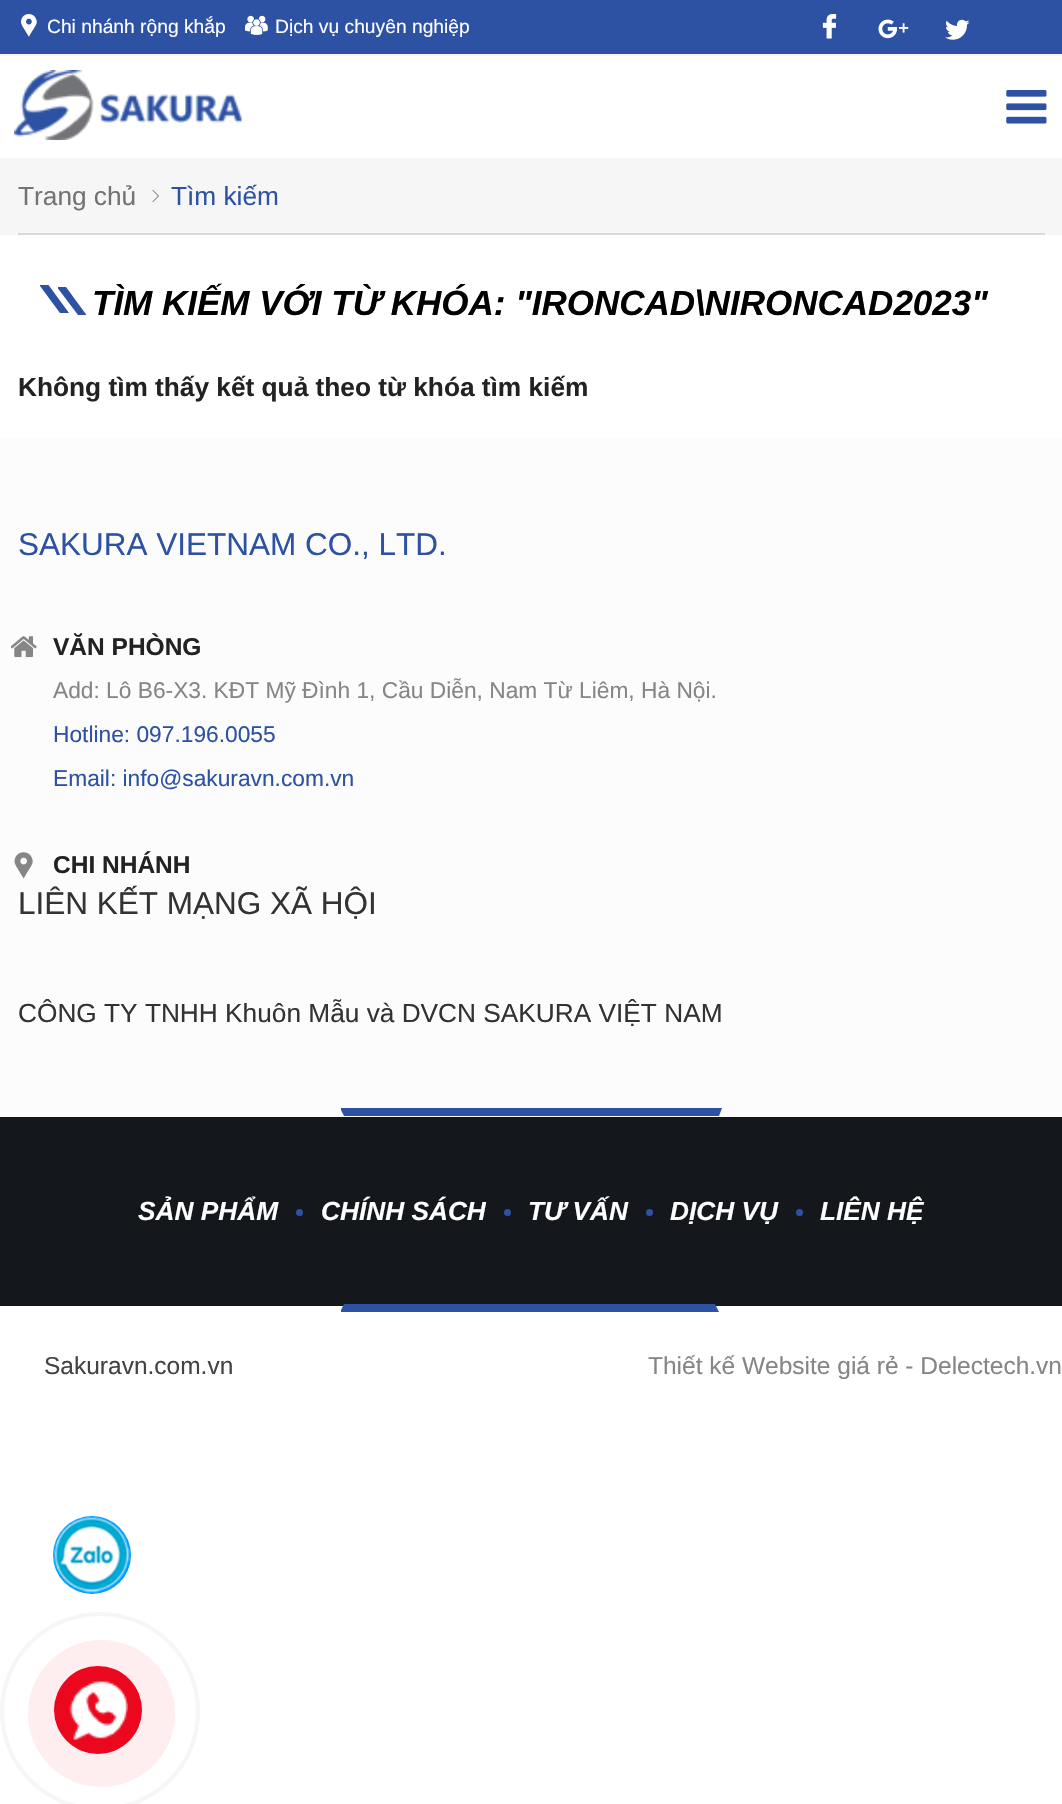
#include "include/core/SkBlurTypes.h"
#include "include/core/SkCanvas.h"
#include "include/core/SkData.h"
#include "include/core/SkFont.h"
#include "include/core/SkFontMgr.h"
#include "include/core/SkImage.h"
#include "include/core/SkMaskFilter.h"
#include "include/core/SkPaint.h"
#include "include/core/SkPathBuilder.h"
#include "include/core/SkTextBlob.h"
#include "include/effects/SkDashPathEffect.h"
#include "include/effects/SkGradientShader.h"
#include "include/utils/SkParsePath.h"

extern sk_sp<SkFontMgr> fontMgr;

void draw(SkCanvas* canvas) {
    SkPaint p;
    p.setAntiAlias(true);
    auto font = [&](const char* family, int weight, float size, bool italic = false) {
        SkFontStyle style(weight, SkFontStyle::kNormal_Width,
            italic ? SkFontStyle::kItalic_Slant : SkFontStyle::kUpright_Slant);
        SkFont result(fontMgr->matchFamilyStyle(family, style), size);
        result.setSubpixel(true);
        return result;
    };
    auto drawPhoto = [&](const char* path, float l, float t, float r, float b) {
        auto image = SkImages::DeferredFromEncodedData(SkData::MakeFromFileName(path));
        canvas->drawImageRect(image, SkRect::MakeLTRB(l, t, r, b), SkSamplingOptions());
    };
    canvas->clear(0xFFFFFFFF);
    p.setColor(0xFF2D51A3);
    canvas->drawRect(SkRect::MakeLTRB(0, 0, 1062, 54), p);
    drawPhoto("media/1.png", 21, 14, 37, 37);
    auto font1 = font("Liberation Sans", 400, 19.25f);
    p.setColor(0xFFFFFFFF);
    canvas->drawString("Chi nhánh rộng khắp", 47, 33, font1, p);
    drawPhoto("media/2.png", 245, 15, 268, 35);
    canvas->drawString("Dịch vụ chuyên nghiệp", 275, 33, font1, p);
    drawPhoto("media/3.png", 822, 14, 837, 39);
    drawPhoto("media/4.png", 878, 19, 909, 39);
    drawPhoto("media/5.png", 945, 19, 970, 40);
    p.setColor(0xFFF6F6F7);
    canvas->drawRect(SkRect::MakeLTRB(0, 54, 1062, 56), p);
    drawPhoto("media/6.png", 14, 70, 242, 140);
    drawPhoto("media/7.png", 1006, 90, 1047, 124);
    p.setColor(0xFFF6F6F6);
    canvas->drawRect(SkRect::MakeLTRB(0, 158, 1062, 235), p);
    p.setColor(0xFFDADADA);
    canvas->drawRect(SkRect::MakeLTRB(18, 233, 1045, 235), p);
    auto font2 = font("Liberation Sans", 400, 26.25f);
    p.setColor(0xFF737373);
    canvas->drawString("Trang chủ", 18, 205, font2, p);
    drawPhoto("media/8.png", 152, 190, 159, 202);
    p.setColor(0xFF2D51A3);
    canvas->drawString("Tìm kiếm", 171, 205, font2, p);
    canvas->drawPath(SkPathBuilder().moveTo(40, 286).lineTo(40, 285).lineTo(48.5f, 285).lineTo(69, 313).lineTo(60, 313).close().detach(), p);
    canvas->drawPath(SkPathBuilder().moveTo(58, 287).lineTo(58, 288.5f).lineTo(78, 315).lineTo(86.5f, 315).lineTo(66, 287).close().detach(), p);
    auto font3 = font("Liberation Sans", 700, 35, true);
    p.setColor(0xFF000000);
    canvas->drawString("TÌM KIẾM VỚI TỪ KHÓA: \"IRONCAD\\NIRONCAD2023\"", 92, 315, font3, p);
    auto font4 = font("Liberation Sans", 700, 26.25f);
    p.setColor(0xFF222222);
    canvas->drawString("Không tìm thấy kết quả theo từ khóa tìm kiếm", 18, 396, font4, p);
    p.setColor(0xFFFCFCFC);
    canvas->drawRect(SkRect::MakeLTRB(0, 438, 1062, 1117), p);
    auto font5 = font("Liberation Sans", 400, 31.5f);
    p.setColor(0xFF2D51A3);
    canvas->drawString("SAKURA VIETNAM CO., LTD.", 18, 555, font5, p);
    drawPhoto("media/9.png", 11, 636, 37, 658);
    auto font6 = font("Liberation Sans", 700, 24.5f);
    p.setColor(0xFF222222);
    canvas->drawString("VĂN PHÒNG", 53, 655, font6, p);
    auto font7 = font("Liberation Sans", 400, 22.75f);
    p.setColor(0xFF868686);
    canvas->drawString("Add: Lô B6-X3. KĐT Mỹ Đình 1, Cầu Diễn, Nam Từ Liêm, Hà Nội.", 53, 698, font7, p);
    p.setColor(0xFF2D51A3);
    canvas->drawString("Hotline: 097.196.0055", 53, 742, font7, p);
    canvas->drawString("Email: info@sakuravn.com.vn", 53, 786, font7, p);
    drawPhoto("media/10.png", 14, 852, 33, 879);
    p.setColor(0xFF222222);
    canvas->drawString("CHI NHÁNH", 53, 873, font6, p);
    p.setColor(0xFF333333);
    canvas->drawString("LIÊN KẾT MẠNG XÃ HỘI", 18, 914, font5, p);
    canvas->drawString("CÔNG TY TNHH Khuôn Mẫu và DVCN SAKURA VIỆT NAM", 18, 1022, font2, p);
    p.setColor(0xFF2D51A3);
    canvas->drawPath(SkPathBuilder().moveTo(722, 1108).lineTo(719, 1116).lineTo(344, 1116).lineTo(341, 1110).lineTo(341, 1108).close().detach(), p);
    p.setColor(0xFF14171C);
    canvas->drawRect(SkRect::MakeLTRB(0, 1117, 1062, 1306), p);
    auto font8 = font("Liberation Sans", 700, 26.25f, true);
    p.setColor(0xFFFFFFFF);
    canvas->drawString("SẢN PHẨM", 138, 1220, font8, p);
    p.setColor(0xFF2D51A3);
    canvas->drawCircle(299.5f, 1212.5f, 3.5f, p);
    p.setColor(0xFFFFFFFF);
    canvas->drawString("CHÍNH SÁCH", 321, 1220, font8, p);
    p.setColor(0xFF2D51A3);
    canvas->drawCircle(507.5f, 1212.5f, 3.5f, p);
    p.setColor(0xFFFFFFFF);
    canvas->drawString("TƯ VẤN", 528, 1220, font8, p);
    p.setColor(0xFF2D51A3);
    canvas->drawCircle(649.5f, 1212.5f, 3.5f, p);
    p.setColor(0xFFFFFFFF);
    canvas->drawString("DỊCH VỤ", 670, 1220, font8, p);
    p.setColor(0xFF2D51A3);
    canvas->drawCircle(799.5f, 1212.5f, 3.5f, p);
    p.setColor(0xFFFFFFFF);
    canvas->drawString("LIÊN HỆ", 820, 1220, font8, p);
    p.setColor(0xFF2D51A3);
    canvas->drawPath(SkPathBuilder().moveTo(715, 1304).lineTo(719, 1312).lineTo(341, 1312).lineTo(341, 1310).lineTo(344, 1304).close().detach(), p);
    auto font9 = font("Liberation Sans", 400, 24.5f);
    p.setColor(0xFF444343);
    canvas->drawString("Sakuravn.com.vn", 44, 1374, font9, p);
    p.setColor(0xFF868686);
    canvas->drawString("Thiết kế Website giá rẻ - Delectech.vn", 648, 1374, font9, p);
    p.setColor(0xFF009DFF);
    canvas->drawCircle(92, 1555, 39, p);
    drawPhoto("media/11.png", 54, 1517, 130, 1593);
    p.setStyle(SkPaint::kStroke_Style);
    p.setStrokeWidth(4);
    p.setColor(0xFFF6F6F6);
    canvas->drawRoundRect(SkRect::MakeLTRB(2, 1614, 198, 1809), 97.5f, 97.5f, p);
    p.setStyle(SkPaint::kFill_Style);
    p.setColor(0xFFFEEEF0);
    canvas->drawCircle(101.5f, 1713.5f, 73.5f, p);
    p.setColor(0xFFEB081E);
    canvas->drawCircle(98, 1710, 44, p);
    drawPhoto("media/12.png", 69, 1680, 128, 1740);
}
